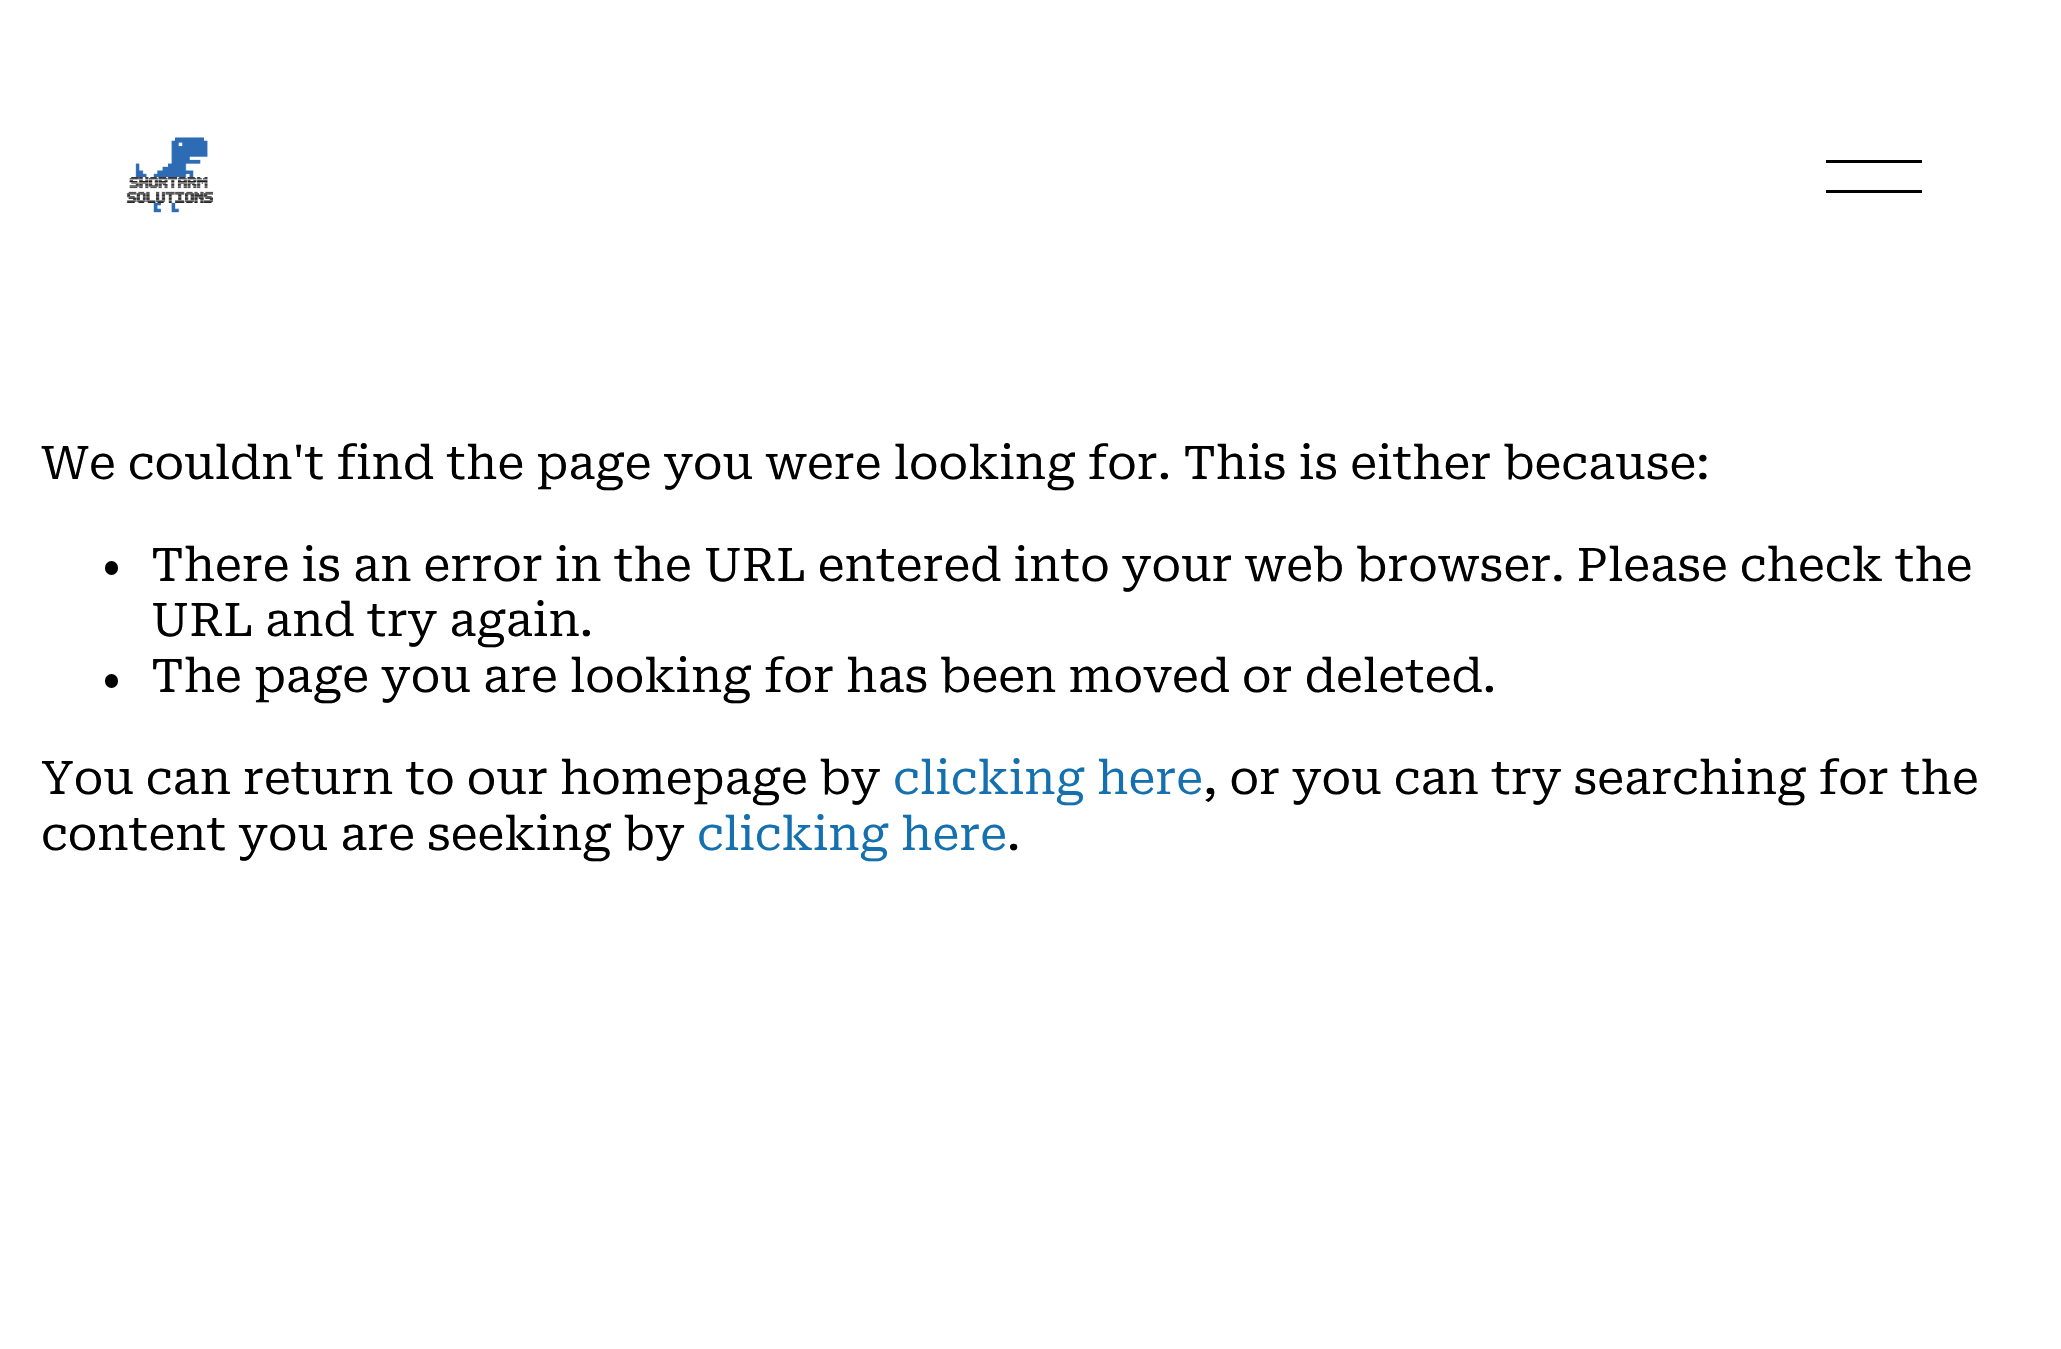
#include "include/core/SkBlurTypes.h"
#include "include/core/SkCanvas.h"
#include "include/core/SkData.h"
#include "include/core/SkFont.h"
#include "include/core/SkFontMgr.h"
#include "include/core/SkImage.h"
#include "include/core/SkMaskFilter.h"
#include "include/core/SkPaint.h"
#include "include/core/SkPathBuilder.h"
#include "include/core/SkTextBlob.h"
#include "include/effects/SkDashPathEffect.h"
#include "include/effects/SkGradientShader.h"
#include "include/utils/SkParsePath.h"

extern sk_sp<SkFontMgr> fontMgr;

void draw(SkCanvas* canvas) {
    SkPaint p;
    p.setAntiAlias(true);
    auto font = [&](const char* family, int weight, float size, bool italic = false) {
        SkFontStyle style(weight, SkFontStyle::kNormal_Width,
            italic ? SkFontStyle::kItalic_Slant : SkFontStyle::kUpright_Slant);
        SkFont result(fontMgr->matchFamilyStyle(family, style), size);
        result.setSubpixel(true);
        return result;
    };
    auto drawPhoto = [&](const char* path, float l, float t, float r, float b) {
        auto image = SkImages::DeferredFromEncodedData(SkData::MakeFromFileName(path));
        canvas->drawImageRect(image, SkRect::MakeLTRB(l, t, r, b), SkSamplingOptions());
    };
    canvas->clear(0xFFFFFFFF);
    drawPhoto("media/1.png", 126, 137, 213, 213);
    p.setColor(0xFF000000);
    canvas->drawRect(SkRect::MakeLTRB(1826, 160, 1922, 163), p);
    canvas->drawRect(SkRect::MakeLTRB(1826, 190, 1922, 193), p);
    auto font1 = font("Roboto Serif", 400, 46.45f);
    canvas->drawString("We couldn't find the page you were looking for. This is either because:", 41, 479, font1, p);
    canvas->drawRoundRect(SkRect::MakeLTRB(105, 561, 118, 575), 6.5f, 6.5f, p);
    canvas->drawString("There is an error in the URL entered into your web browser. Please check the", 151, 581, font1, p);
    canvas->drawString("URL and try again.", 151, 636, font1, p);
    canvas->drawRoundRect(SkRect::MakeLTRB(105, 674, 118, 688), 6.5f, 6.5f, p);
    canvas->drawString("The page you are looking for has been moved or deleted.", 151, 692, font1, p);
    canvas->drawString("You can return to our homepage by", 41, 794, font1, p);
    p.setColor(0xFF1470AF);
    canvas->drawString("clicking here", 893, 794, font1, p);
    p.setColor(0xFF000000);
    canvas->drawString(", or you can try searching for the", 1203, 794, font1, p);
    canvas->drawString("content you are seeking by", 41, 850, font1, p);
    p.setColor(0xFF1470AF);
    canvas->drawString("clicking here", 697, 850, font1, p);
    p.setColor(0xFF000000);
    canvas->drawString(".", 1007, 850, font1, p);
}
